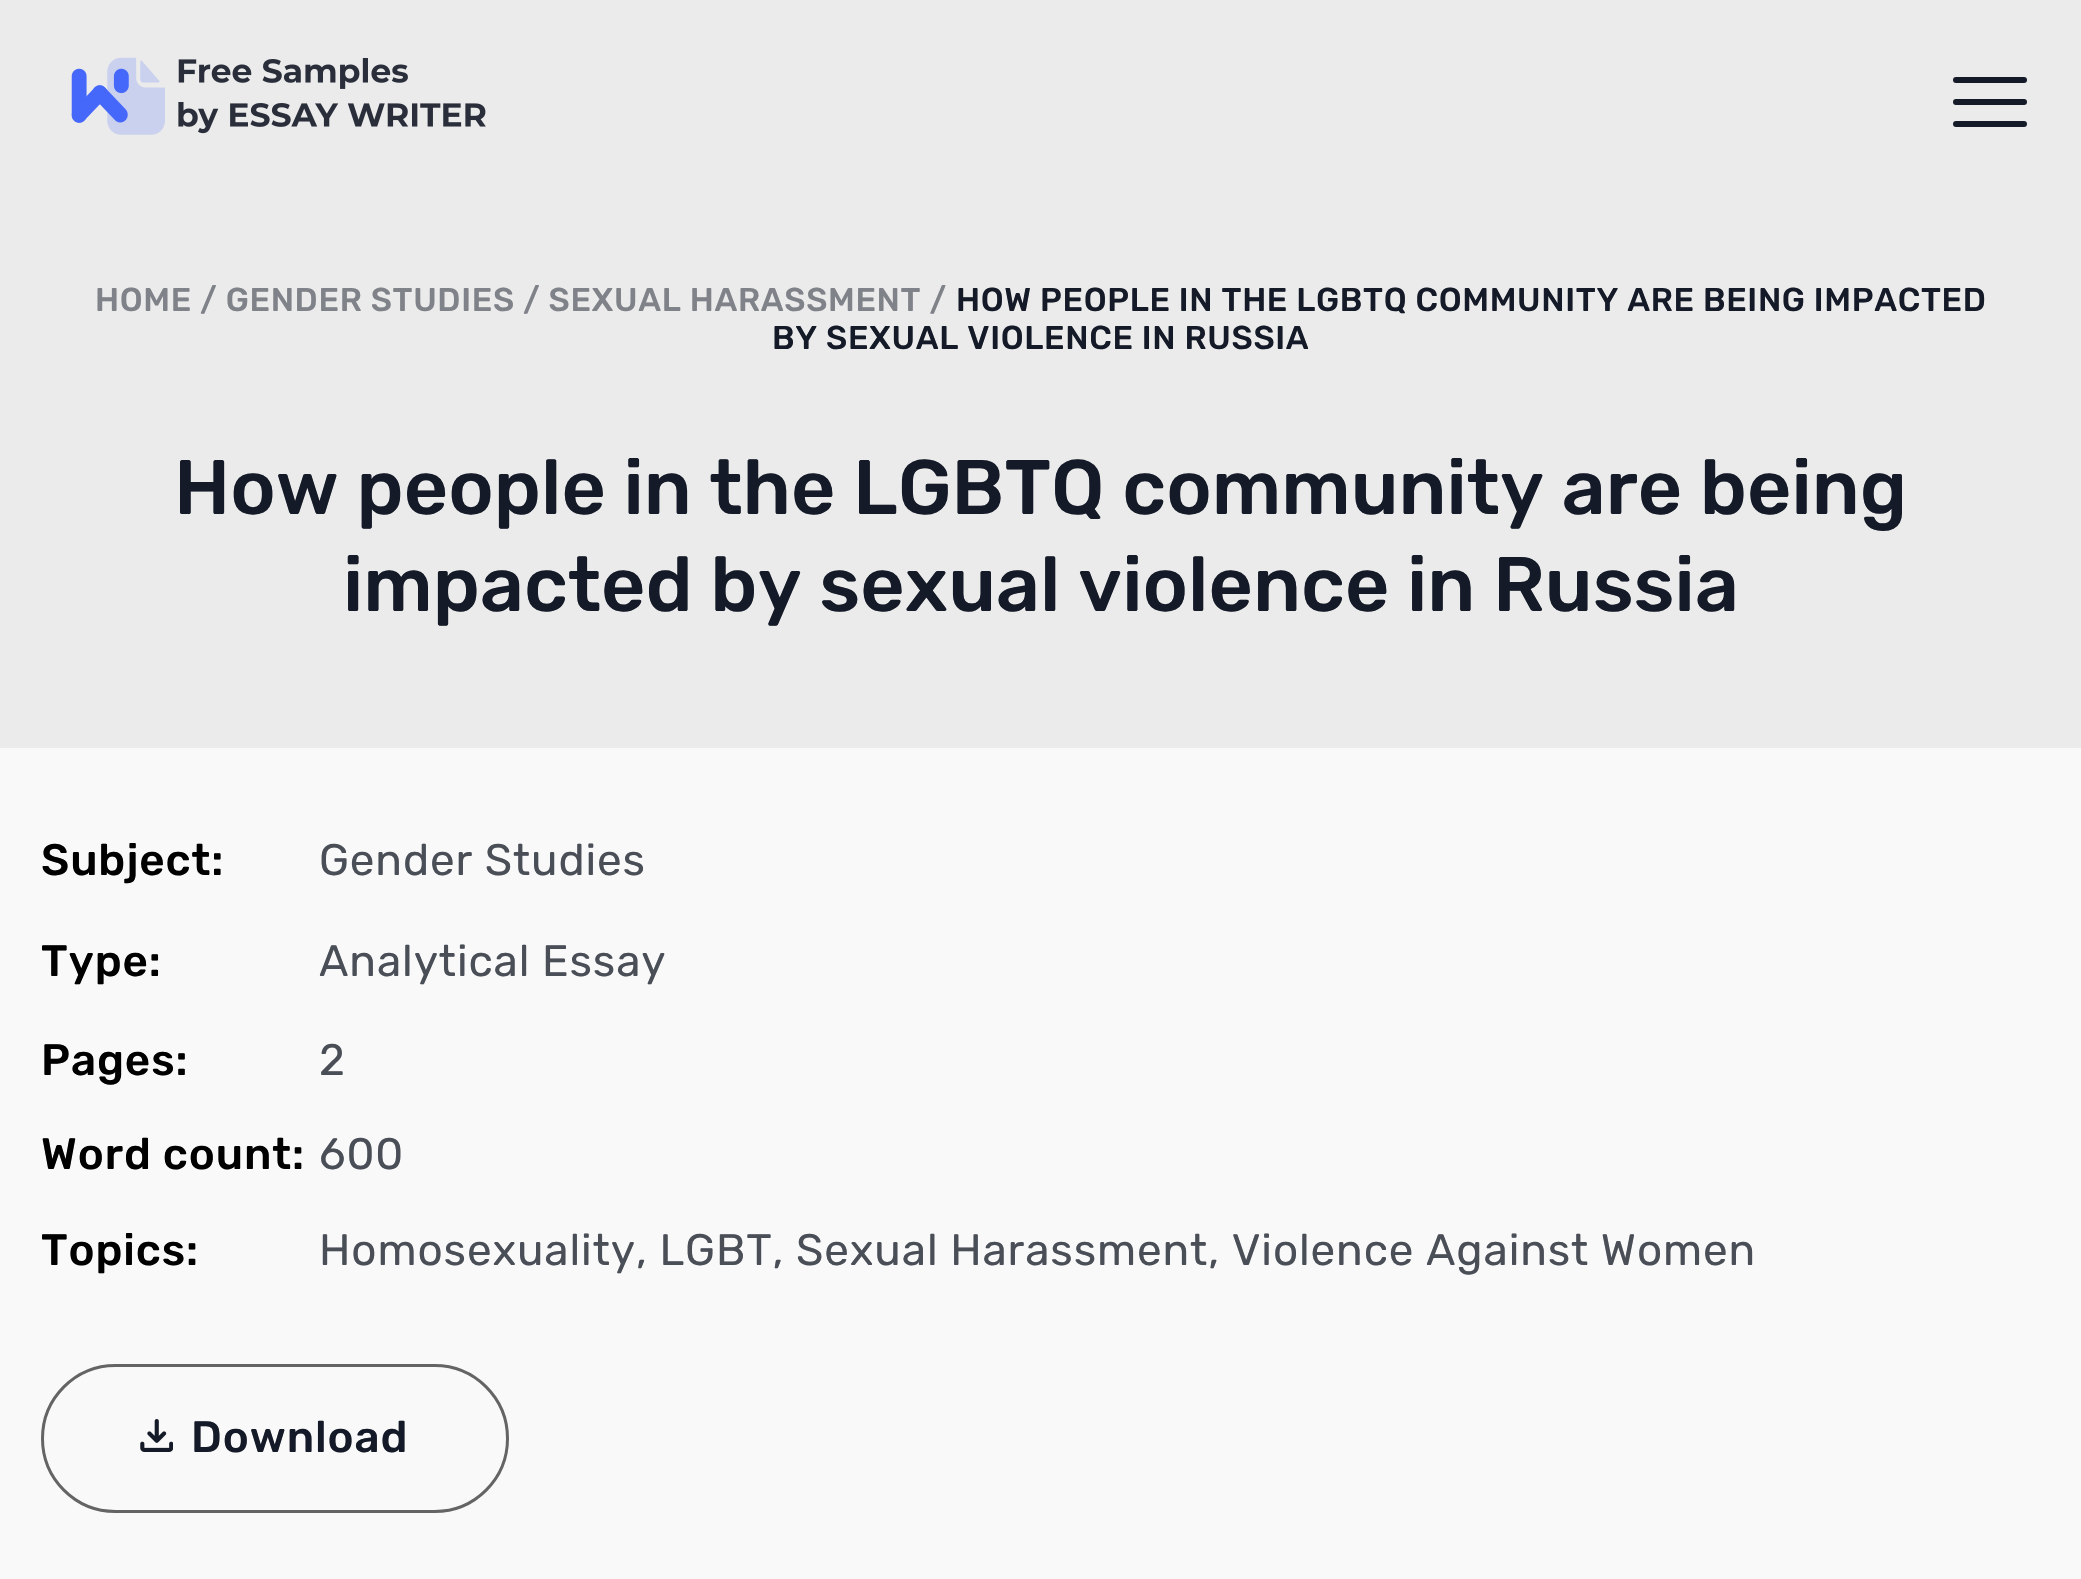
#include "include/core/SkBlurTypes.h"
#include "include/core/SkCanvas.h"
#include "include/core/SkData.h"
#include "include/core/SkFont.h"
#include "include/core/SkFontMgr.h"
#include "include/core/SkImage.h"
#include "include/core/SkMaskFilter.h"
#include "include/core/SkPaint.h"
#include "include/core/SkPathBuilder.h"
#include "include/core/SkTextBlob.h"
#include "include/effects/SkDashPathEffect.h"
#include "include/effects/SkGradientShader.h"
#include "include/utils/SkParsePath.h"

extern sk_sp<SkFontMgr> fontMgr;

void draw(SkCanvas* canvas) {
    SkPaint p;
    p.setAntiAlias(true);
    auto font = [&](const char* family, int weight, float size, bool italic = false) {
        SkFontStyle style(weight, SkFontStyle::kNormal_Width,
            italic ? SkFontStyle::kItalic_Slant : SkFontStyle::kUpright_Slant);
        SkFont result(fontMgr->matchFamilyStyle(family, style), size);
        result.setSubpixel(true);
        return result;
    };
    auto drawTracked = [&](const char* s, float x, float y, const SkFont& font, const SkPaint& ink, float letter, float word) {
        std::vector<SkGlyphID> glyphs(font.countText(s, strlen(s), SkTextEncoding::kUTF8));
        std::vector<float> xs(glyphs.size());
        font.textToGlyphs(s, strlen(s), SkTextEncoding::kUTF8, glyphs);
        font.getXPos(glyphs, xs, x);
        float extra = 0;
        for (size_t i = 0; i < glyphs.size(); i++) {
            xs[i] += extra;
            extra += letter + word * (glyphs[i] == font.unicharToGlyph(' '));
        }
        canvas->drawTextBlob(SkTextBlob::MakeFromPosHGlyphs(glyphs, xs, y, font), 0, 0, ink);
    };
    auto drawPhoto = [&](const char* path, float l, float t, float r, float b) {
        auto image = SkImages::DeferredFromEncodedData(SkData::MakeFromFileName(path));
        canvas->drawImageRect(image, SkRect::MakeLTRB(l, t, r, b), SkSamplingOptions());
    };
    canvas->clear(0xFFEBEBEB);
    drawPhoto("media/1.png", 71, 57, 486, 135);
    p.setColor(0xFF141A27);
    canvas->drawRoundRect(SkRect::MakeLTRB(1953, 77, 2027, 83), 3, 3, p);
    canvas->drawRoundRect(SkRect::MakeLTRB(1953, 99, 2027, 105), 3, 3, p);
    canvas->drawRoundRect(SkRect::MakeLTRB(1953, 121, 2027, 127), 3, 3, p);
    auto font1 = font("Rubik", 500, 33);
    p.setColor(0xFF7F8288);
    drawTracked("HOME / GENDER STUDIES / SEXUAL HARASSMENT /", 95, 311, font1, p, 0.65f, 0);
    p.setColor(0xFF141A27);
    drawTracked("HOW PEOPLE IN THE LGBTQ COMMUNITY ARE BEING IMPACTED", 956, 311, font1, p, 0.65f, 0);
    drawTracked("BY SEXUAL VIOLENCE IN RUSSIA", 772, 349, font1, p, 0.65f, 0);
    auto font2 = font("Rubik", 500, 77);
    canvas->drawString("How people in the LGBTQ community are being", 174, 514, font2, p);
    canvas->drawString("impacted by sexual violence in Russia", 343, 611, font2, p);
    p.setColor(0xFFF9F9F9);
    canvas->drawRect(SkRect::MakeLTRB(0, 748, 2081, 1579), p);
    auto font3 = font("Rubik", 500, 44);
    p.setColor(0xFF000000);
    drawTracked("Subject:", 41, 875, font3, p, 0.88f, 0);
    auto font4 = font("Rubik", 400, 44);
    p.setColor(0xFF4A4E57);
    drawTracked("Gender Studies", 319, 875, font4, p, 0.88f, 0);
    p.setColor(0xFF000000);
    drawTracked("Type:", 41, 976, font3, p, 0.88f, 0);
    p.setColor(0xFF4A4E57);
    drawTracked("Analytical Essay", 319, 976, font4, p, 0.88f, 0);
    p.setColor(0xFF000000);
    drawTracked("Pages:", 41, 1075, font3, p, 0.88f, 0);
    p.setColor(0xFF4A4E57);
    drawTracked("2", 319, 1075, font4, p, 0.88f, 0);
    p.setColor(0xFF000000);
    drawTracked("Word count:", 41, 1169, font3, p, 0.88f, 0);
    p.setColor(0xFF4A4E57);
    drawTracked("600", 319, 1169, font4, p, 0.88f, 0);
    p.setColor(0xFF000000);
    drawTracked("Topics:", 41, 1265, font3, p, 0.88f, 0);
    p.setColor(0xFF4A4E57);
    drawTracked("Homosexuality, LGBT, Sexual Harassment, Violence Against Women", 319, 1265, font4, p, 0.88f, 0);
    p.setStyle(SkPaint::kStroke_Style);
    p.setStrokeWidth(3);
    p.setColor(0xFF646464);
    canvas->drawRoundRect(SkRect::MakeLTRB(42.5f, 1365.5f, 507.5f, 1511.5f), 73, 73, p);
    drawPhoto("media/2.png", 140, 1419, 173, 1452);
    p.setStyle(SkPaint::kFill_Style);
    p.setColor(0xFF141A27);
    drawTracked("Download", 191, 1452, font3, p, 0.88f, 0);
}
